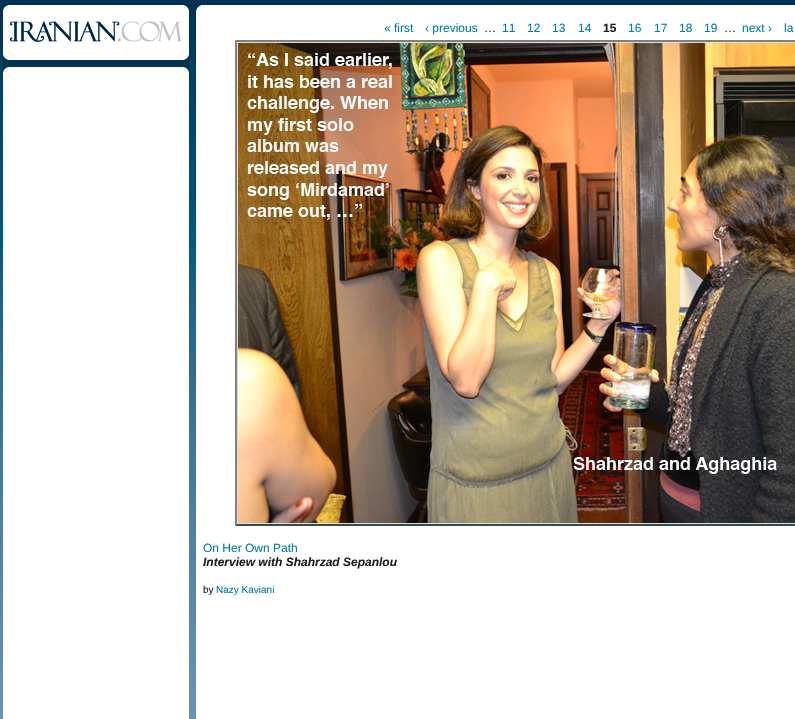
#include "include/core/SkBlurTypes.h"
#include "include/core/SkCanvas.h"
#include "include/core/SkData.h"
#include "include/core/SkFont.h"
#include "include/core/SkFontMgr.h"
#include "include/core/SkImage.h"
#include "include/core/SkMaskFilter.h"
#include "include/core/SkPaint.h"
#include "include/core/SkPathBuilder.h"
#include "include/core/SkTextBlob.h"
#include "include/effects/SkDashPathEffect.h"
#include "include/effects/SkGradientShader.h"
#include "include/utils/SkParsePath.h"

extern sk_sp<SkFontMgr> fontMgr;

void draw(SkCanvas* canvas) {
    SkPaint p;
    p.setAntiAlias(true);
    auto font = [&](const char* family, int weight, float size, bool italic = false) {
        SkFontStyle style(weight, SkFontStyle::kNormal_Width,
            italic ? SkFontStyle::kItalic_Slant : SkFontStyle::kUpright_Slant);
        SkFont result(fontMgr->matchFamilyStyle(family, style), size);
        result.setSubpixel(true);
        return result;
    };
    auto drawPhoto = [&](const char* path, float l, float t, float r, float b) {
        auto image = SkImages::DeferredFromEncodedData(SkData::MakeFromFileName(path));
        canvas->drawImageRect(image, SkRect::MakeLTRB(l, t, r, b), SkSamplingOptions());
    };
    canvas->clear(0xFFFFFFFF);
    drawPhoto("media/1.png", 0, 0, 795, 719);
    p.setColor(0xFFFFFFFF);
    canvas->drawRect(SkRect::MakeLTRB(3, 72, 189, 719), p);
    drawPhoto("media/2.png", 3, 5, 189, 67);
    drawPhoto("media/3.png", 3, 67, 189, 72);
    canvas->drawRect(SkRect::MakeLTRB(196, 5, 795, 719), p);
    drawPhoto("media/4.png", 196, 5, 202, 11);
    auto font1 = font("Liberation Sans", 400, 12);
    p.setColor(0xFF007DA6);
    canvas->drawString("« first", 384, 32, font1, p);
    canvas->drawString("‹ previous", 425, 32, font1, p);
    p.setColor(0xFF221E1F);
    canvas->drawString("…", 484, 32, font1, p);
    p.setColor(0xFF007DA6);
    {
        const struct { const char* s; float x, y; } items[] = {
            {"11", 502, 32},
            {"12", 527, 32},
            {"13", 552, 32},
            {"14", 578, 32},
        };
        for (auto [s, x, y] : items) {
            canvas->drawString(s, x, y, font1, p);
        }
    }
    auto font2 = font("Liberation Sans", 700, 12);
    p.setColor(0xFF221E1F);
    canvas->drawString("15", 603, 32, font2, p);
    p.setColor(0xFF007DA6);
    {
        const struct { const char* s; float x, y; } items[] = {
            {"16", 628, 32},
            {"17", 654, 32},
            {"18", 679, 32},
            {"19", 704, 32},
        };
        for (auto [s, x, y] : items) {
            canvas->drawString(s, x, y, font1, p);
        }
    }
    p.setColor(0xFF221E1F);
    canvas->drawString("…", 724, 32, font1, p);
    p.setColor(0xFF007DA6);
    canvas->drawString("next ›", 742, 32, font1, p);
    canvas->drawString("la", 784, 32, font1, p);
    p.setColor(0xFFDCDCDC);
    canvas->drawRect(SkRect::MakeLTRB(235, 40, 795, 526), p);
    p.setColor(0xFF808080);
    canvas->drawPath(SkPathBuilder().moveTo(235, 40).lineTo(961, 40).lineTo(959, 42).lineTo(237, 42).close().detach(), p);
    p.setColor(0xFF2F4F4F);
    canvas->drawPath(SkPathBuilder().moveTo(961, 526).lineTo(235, 526).lineTo(237, 524).lineTo(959, 524).close().detach(), p);
    p.setColor(0xFF808080);
    canvas->drawPath(SkPathBuilder().moveTo(235, 526).lineTo(235, 40).lineTo(237, 42).lineTo(237, 524).close().detach(), p);
    drawPhoto("media/5.png", 238, 43, 795, 523);
    p.setColor(0xFF007DA6);
    canvas->drawString("On Her Own Path", 203, 552, font1, p);
    auto font3 = font("Liberation Sans", 700, 12, true);
    p.setColor(0xFF221E1F);
    canvas->drawString("Interview with Shahrzad Sepanlou", 203, 566, font3, p);
    auto font4 = font("Liberation Sans", 400, 10);
    canvas->drawString("by", 203, 593, font4, p);
    p.setColor(0xFF007DA6);
    canvas->drawString("Nazy Kaviani", 216, 593, font4, p);
}
